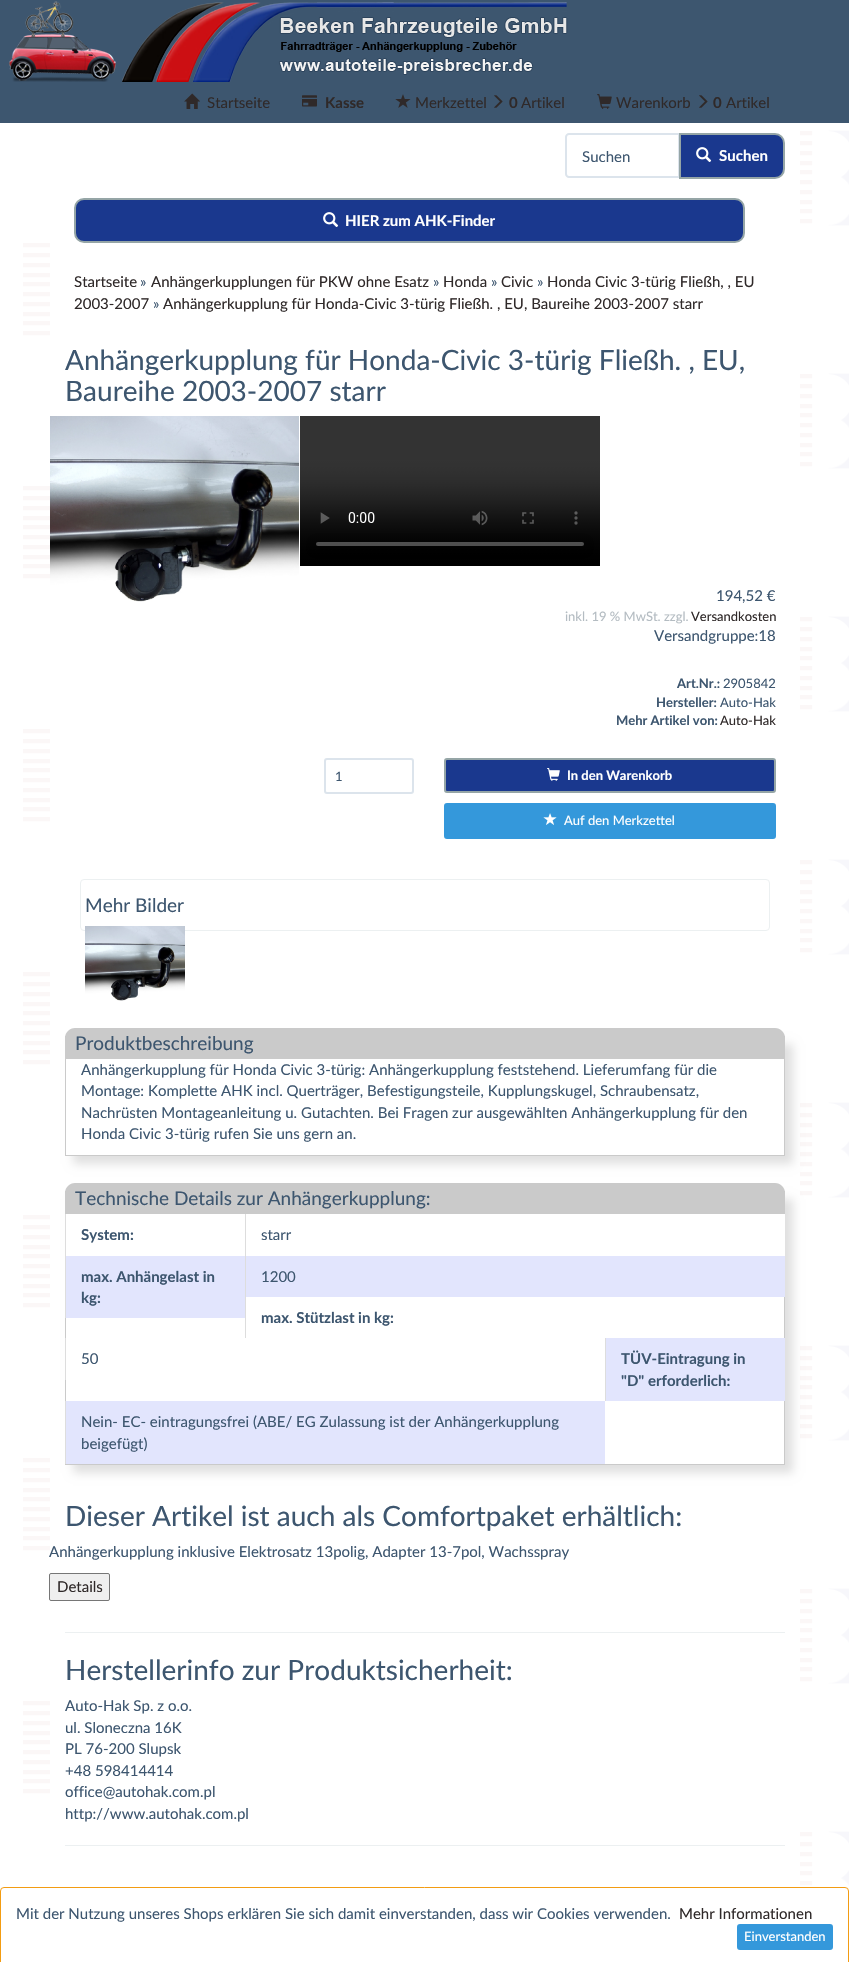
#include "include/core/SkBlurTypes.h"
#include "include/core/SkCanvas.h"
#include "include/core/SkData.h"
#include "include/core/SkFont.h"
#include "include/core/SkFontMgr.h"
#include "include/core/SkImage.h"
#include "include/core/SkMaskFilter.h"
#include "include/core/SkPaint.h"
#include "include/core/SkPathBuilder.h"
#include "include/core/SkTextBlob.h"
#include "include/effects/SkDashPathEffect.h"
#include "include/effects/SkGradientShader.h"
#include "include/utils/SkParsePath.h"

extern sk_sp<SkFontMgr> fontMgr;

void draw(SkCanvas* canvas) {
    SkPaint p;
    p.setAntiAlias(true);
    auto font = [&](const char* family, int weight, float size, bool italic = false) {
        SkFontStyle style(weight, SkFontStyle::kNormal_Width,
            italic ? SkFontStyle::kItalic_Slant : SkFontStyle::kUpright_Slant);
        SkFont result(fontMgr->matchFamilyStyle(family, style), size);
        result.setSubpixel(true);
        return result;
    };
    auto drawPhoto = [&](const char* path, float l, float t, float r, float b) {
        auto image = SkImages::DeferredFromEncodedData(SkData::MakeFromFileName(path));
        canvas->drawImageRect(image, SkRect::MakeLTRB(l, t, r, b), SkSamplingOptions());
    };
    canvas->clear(0xFFFFFFFF);
    drawPhoto("media/1.png", 23, 123, 849, 1891);
    p.setColor(0xFF3D566F);
    canvas->drawRect(SkRect::MakeLTRB(0, 0, 849, 123), p);
    drawPhoto("media/2.png", 9, 1, 116, 82);
    drawPhoto("media/3.png", 122, 2, 568, 82);
    drawPhoto("media/4.png", 184, 93, 200, 109);
    auto font1 = font("Lato", 400, 15);
    p.setColor(0xFF2F2929);
    canvas->drawString("Startseite", 207, 108, font1, p);
    drawPhoto("media/5.png", 302, 95, 317, 107);
    auto font2 = font("Lato", 700, 15);
    canvas->drawString("Kasse", 325, 108, font2, p);
    drawPhoto("media/6.png", 395, 94, 411, 108);
    canvas->drawString("Merkzettel", 415, 108, font1, p);
    drawPhoto("media/7.png", 494, 95, 503, 108);
    canvas->drawString("0", 509, 108, font2, p);
    canvas->drawString("Artikel", 521, 108, font1, p);
    drawPhoto("media/8.png", 597, 94, 612, 109);
    canvas->drawString("Warenkorb", 616, 108, font1, p);
    drawPhoto("media/7.png", 699, 95, 708, 108);
    canvas->drawString("0", 713, 108, font2, p);
    canvas->drawString("Artikel", 726, 108, font1, p);
    p.setColor(0xFFFFFFFF);
    canvas->drawRect(SkRect::MakeLTRB(50, 130, 800, 1887), p);
    p.setStyle(SkPaint::kStroke_Style);
    p.setStrokeWidth(2);
    p.setColor(0xFFDCE4EC);
    canvas->drawPath(SkPathBuilder().moveTo(569, 134).lineTo(679, 134).lineTo(679, 177).lineTo(569, 177).cubicTo(567.5f, 177, 566, 175.5f, 566, 174).lineTo(566, 137).cubicTo(566, 135.5f, 567.5f, 134, 569, 134).close().detach(), p);
    p.setStyle(SkPaint::kFill_Style);
    p.setColor(0xFF3D566F);
    canvas->drawString("Suchen", 582, 162, font1, p);
    p.setColor(0xFF1A388E);
    canvas->drawPath(SkPathBuilder().moveTo(680, 134).lineTo(775, 134).cubicTo(780, 134, 784, 138, 784, 143).lineTo(784, 169).cubicTo(784, 174, 780, 178, 775, 178).lineTo(680, 178).close().detach(), p);
    p.setStyle(SkPaint::kStroke_Style);
    p.setColor(0xFF95A5A6);
    canvas->drawPath(SkPathBuilder().moveTo(680, 134).lineTo(775, 134).cubicTo(780, 134, 784, 138, 784, 143).lineTo(784, 169).cubicTo(784, 174, 780, 178, 775, 178).lineTo(680, 178).close().detach(), p);
    drawPhoto("media/9.png", 696, 147, 712, 162);
    p.setStyle(SkPaint::kFill_Style);
    p.setColor(0xFFFFFFFF);
    canvas->drawString("Suchen", 719, 161, font2, p);
    p.setColor(0xFF1A388E);
    canvas->drawRoundRect(SkRect::MakeLTRB(75, 199, 744, 242), 9, 9, p);
    p.setStyle(SkPaint::kStroke_Style);
    p.setColor(0xFF95A5A6);
    canvas->drawRoundRect(SkRect::MakeLTRB(75, 199, 744, 242), 9, 9, p);
    drawPhoto("media/9.png", 323, 212, 339, 227);
    p.setStyle(SkPaint::kFill_Style);
    p.setColor(0xFFFFFFFF);
    canvas->drawString("HIER zum AHK-Finder", 345, 226, font2, p);
    p.setColor(0xFF2F2929);
    canvas->drawString("Startseite", 74, 287, font1, p);
    p.setColor(0xFF3D566F);
    canvas->drawString("»", 140, 287, font1, p);
    p.setColor(0xFF2F2929);
    canvas->drawString("Anhängerkupplungen für PKW ohne Esatz", 151, 287, font1, p);
    p.setColor(0xFF3D566F);
    canvas->drawString("»", 433, 287, font1, p);
    p.setColor(0xFF2F2929);
    canvas->drawString("Honda", 443, 287, font1, p);
    p.setColor(0xFF3D566F);
    canvas->drawString("»", 491, 287, font1, p);
    p.setColor(0xFF2F2929);
    canvas->drawString("Civic", 501, 287, font1, p);
    p.setColor(0xFF3D566F);
    canvas->drawString("»", 537, 287, font1, p);
    p.setColor(0xFF2F2929);
    canvas->drawString("Honda Civic 3-türig Fließh, , EU", 547, 287, font1, p);
    canvas->drawString("2003-2007", 74, 309, font1, p);
    p.setColor(0xFF3D566F);
    canvas->drawString("»", 153, 309, font1, p);
    p.setColor(0xFF2F2929);
    canvas->drawString("Anhängerkupplung für Honda-Civic 3-türig Fließh. , EU, Baureihe 2003-2007 starr", 163, 309, font1, p);
    auto font3 = font("Lato", 400, 28);
    p.setColor(0xFF3D566F);
    canvas->drawString("Anhängerkupplung für Honda-Civic 3-türig Fließh. , EU,", 65, 370, font3, p);
    canvas->drawString("Baureihe 2003-2007 starr", 65, 401, font3, p);
    drawPhoto("media/10.png", 50, 416, 299, 602);
    drawPhoto("media/11.png", 300, 416, 600, 566);
    canvas->drawString("194,52 €", 716, 601, font1, p);
    auto font4 = font("Lato", 400, 13);
    p.setColor(0xFFB4BCC2);
    canvas->drawString("inkl. 19 % MwSt. zzgl.", 565, 621, font4, p);
    p.setColor(0xFF2F2929);
    canvas->drawString("Versandkosten", 691, 621, font4, p);
    p.setColor(0xFF3D566F);
    canvas->drawString("Versandgruppe:18", 654, 641, font1, p);
    auto font5 = font("Lato", 700, 13);
    canvas->drawString("Art.Nr.:", 677, 688, font5, p);
    canvas->drawString("2905842", 723, 688, font4, p);
    canvas->drawString("Hersteller:", 656, 707, font5, p);
    canvas->drawString("Auto-Hak", 720, 707, font4, p);
    canvas->drawString("Mehr Artikel von:", 616, 725, font5, p);
    p.setColor(0xFF2F2929);
    canvas->drawString("Auto-Hak", 720, 725, font4, p);
    p.setStyle(SkPaint::kStroke_Style);
    p.setColor(0xFFDCE4EC);
    canvas->drawRoundRect(SkRect::MakeLTRB(325, 759, 413, 793), 2, 2, p);
    p.setStyle(SkPaint::kFill_Style);
    p.setColor(0xFF3D566F);
    canvas->drawString("1", 335, 781, font4, p);
    p.setColor(0xFF1A388E);
    canvas->drawRoundRect(SkRect::MakeLTRB(445, 759, 775, 792), 2, 2, p);
    p.setStyle(SkPaint::kStroke_Style);
    p.setColor(0xFF95A5A6);
    canvas->drawRoundRect(SkRect::MakeLTRB(445, 759, 775, 792), 2, 2, p);
    drawPhoto("media/12.png", 547, 768, 560, 781);
    p.setStyle(SkPaint::kFill_Style);
    p.setColor(0xFFFFFFFF);
    canvas->drawString("In den Warenkorb", 567, 780, font5, p);
    p.setColor(0xFF3498DB);
    canvas->drawRoundRect(SkRect::MakeLTRB(445, 804, 775, 838), 2, 2, p);
    p.setStyle(SkPaint::kStroke_Style);
    canvas->drawRoundRect(SkRect::MakeLTRB(445, 804, 775, 838), 2, 2, p);
    drawPhoto("media/13.png", 543, 813, 557, 825);
    p.setStyle(SkPaint::kFill_Style);
    p.setColor(0xFFFFFFFF);
    canvas->drawString("Auf den Merkzettel", 564, 825, font4, p);
    p.setStyle(SkPaint::kStroke_Style);
    p.setStrokeWidth(1);
    p.setColor(0xFFECF0F1);
    canvas->drawRoundRect(SkRect::MakeLTRB(80.5f, 879.5f, 769.5f, 930.5f), 3.5f, 3.5f, p);
    auto font6 = font("Lato", 400, 19);
    p.setStyle(SkPaint::kFill_Style);
    p.setColor(0xFF3D566F);
    canvas->drawString("Mehr Bilder", 85, 912, font6, p);
    drawPhoto("media/14.png", 85, 926, 185, 1001);
    canvas->save();
    canvas->clipPath(SkPathBuilder(SkPathFillType::kEvenOdd).moveTo(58, 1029).lineTo(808, 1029).lineTo(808, 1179).lineTo(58, 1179).close().moveTo(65, 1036).lineTo(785, 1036).lineTo(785, 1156).lineTo(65, 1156).close().detach(), true);
    p.setColor(0x1F000000);
    p.setMaskFilter(SkMaskFilter::MakeBlur(kNormal_SkBlurStyle, 4.5f));
    canvas->drawRect(SkRect::MakeLTRB(73, 1044, 793, 1164), p);
    p.setMaskFilter(nullptr);
    canvas->restore();
    {
        const struct { float l, t, r, b; SkColor color; } items[] = {
            {784, 1036, 785, 1156, 0xFFCACACA},
            {65, 1155, 785, 1156, 0xFFCACACA},
            {65, 1036, 66, 1156, 0xFFCACACA},
        };
        for (auto [l, t, r, b, color] : items) {
            p.setColor(color);
            canvas->drawRect(SkRect::MakeLTRB(l, t, r, b), p);
        }
    }
    canvas->drawPath(SkPathBuilder().moveTo(75, 1028).lineTo(775, 1028).cubicTo(780.5f, 1028, 785, 1032.5f, 785, 1038).lineTo(785, 1059).lineTo(65, 1059).lineTo(65, 1038).cubicTo(65, 1032.5f, 69.5f, 1028, 75, 1028).close().detach(), p);
    p.setColor(0xFF3D566F);
    canvas->drawString("Produktbeschreibung", 75, 1050, font6, p);
    {
        const struct { const char* s; float x, y; } items[] = {
            {"Anhängerkupplung für Honda Civic 3-türig: Anhängerkupplung feststehend. Lieferumfang für die", 81, 1075},
            {"Montage: Komplette AHK incl. Querträger, Befestigungsteile, Kupplungskugel, Schraubensatz,", 81, 1096},
            {"Nachrüsten Montageanleitung u. Gutachten. Bei Fragen zur ausgewählten Anhängerkupplung für den", 81, 1118},
            {"Honda Civic 3-türig rufen Sie uns gern an.", 81, 1139},
        };
        for (auto [s, x, y] : items) {
            canvas->drawString(s, x, y, font1, p);
        }
    }
    canvas->save();
    canvas->clipPath(SkPathBuilder(SkPathFillType::kEvenOdd).moveTo(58, 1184).lineTo(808, 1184).lineTo(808, 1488).lineTo(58, 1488).close().moveTo(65, 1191).lineTo(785, 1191).lineTo(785, 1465).lineTo(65, 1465).close().detach(), true);
    p.setColor(0x1F000000);
    p.setMaskFilter(SkMaskFilter::MakeBlur(kNormal_SkBlurStyle, 4.5f));
    canvas->drawRect(SkRect::MakeLTRB(73, 1199, 793, 1473), p);
    p.setMaskFilter(nullptr);
    canvas->restore();
    {
        const struct { float l, t, r, b; SkColor color; } items[] = {
            {784, 1191, 785, 1465, 0xFFCACACA},
            {65, 1464, 785, 1465, 0xFFCACACA},
            {65, 1191, 66, 1465, 0xFFCACACA},
        };
        for (auto [l, t, r, b, color] : items) {
            p.setColor(color);
            canvas->drawRect(SkRect::MakeLTRB(l, t, r, b), p);
        }
    }
    canvas->drawPath(SkPathBuilder().moveTo(75, 1183).lineTo(775, 1183).cubicTo(780.5f, 1183, 785, 1187.5f, 785, 1193).lineTo(785, 1214).lineTo(65, 1214).lineTo(65, 1193).cubicTo(65, 1187.5f, 69.5f, 1183, 75, 1183).close().detach(), p);
    p.setColor(0xFF3D566F);
    canvas->drawString("Technische Details zur Anhängerkupplung:", 75, 1205, font6, p);
    p.setColor(0xFFDDDDDD);
    canvas->drawRect(SkRect::MakeLTRB(65, 1214, 66, 1318), p);
    p.setColor(0xFF3D566F);
    canvas->drawString("System:", 81, 1240, font2, p);
    p.setColor(0xFFFFFFFF);
    canvas->drawRect(SkRect::MakeLTRB(784, 1214, 785, 1256), p);
    p.setColor(0xFFDDDDDD);
    canvas->drawRect(SkRect::MakeLTRB(245, 1214, 246, 1338), p);
    p.setColor(0xFF3D566F);
    canvas->drawString("starr", 261, 1240, font1, p);
    p.setColor(0xFFE2E5FD);
    canvas->drawRect(SkRect::MakeLTRB(66, 1256, 245, 1318), p);
    p.setColor(0xFF3D566F);
    canvas->drawString("max. Anhängelast in", 81, 1282, font2, p);
    canvas->drawString("kg:", 81, 1303, font2, p);
    p.setColor(0xFFE2E5FD);
    canvas->drawRect(SkRect::MakeLTRB(246, 1256, 785, 1297), p);
    p.setColor(0xFF3D566F);
    canvas->drawString("1200", 261, 1282, font1, p);
    canvas->drawString("max. Stützlast in kg:", 261, 1323, font2, p);
    p.setColor(0xFFDDDDDD);
    canvas->drawRect(SkRect::MakeLTRB(65, 1338, 66, 1380), p);
    p.setColor(0xFF3D566F);
    canvas->drawString("50", 81, 1364, font1, p);
    p.setColor(0xFFE2E5FD);
    canvas->drawRect(SkRect::MakeLTRB(606, 1338, 785, 1401), p);
    p.setColor(0xFFDDDDDD);
    canvas->drawRect(SkRect::MakeLTRB(605, 1338, 606, 1401), p);
    p.setColor(0xFF3D566F);
    canvas->drawString("TÜV-Eintragung in", 621, 1364, font2, p);
    canvas->drawString("\"D\" erforderlich:", 621, 1386, font2, p);
    p.setColor(0xFFE2E5FD);
    canvas->drawRect(SkRect::MakeLTRB(66, 1401, 605, 1464), p);
    p.setColor(0xFFDDDDDD);
    canvas->drawRect(SkRect::MakeLTRB(65, 1401, 66, 1464), p);
    p.setColor(0xFF3D566F);
    canvas->drawString("Nein- EC- eintragungsfrei (ABE/ EG Zulassung ist der Anhängerkupplung", 81, 1427, font1, p);
    canvas->drawString("beigefügt)", 81, 1449, font1, p);
    canvas->drawString("Dieser Artikel ist auch als Comfortpaket erhältlich:", 65, 1526, font3, p);
    canvas->drawString("Anhängerkupplung inklusive Elektrosatz 13polig, Adapter 13-7pol, Wachsspray", 49, 1557, font1, p);
    p.setColor(0xFFEFEFEF);
    canvas->drawRoundRect(SkRect::MakeLTRB(49.5f, 1573.5f, 109.5f, 1600.5f), 1.5f, 1.5f, p);
    p.setStyle(SkPaint::kStroke_Style);
    p.setColor(0xFF767676);
    canvas->drawRoundRect(SkRect::MakeLTRB(49.5f, 1573.5f, 109.5f, 1600.5f), 1.5f, 1.5f, p);
    p.setStyle(SkPaint::kFill_Style);
    p.setColor(0xFF2F2929);
    canvas->drawString("Details", 57, 1592, font1, p);
    p.setColor(0xFFECF0F1);
    canvas->drawRect(SkRect::MakeLTRB(65, 1632, 785, 1633), p);
    p.setColor(0xFF3D566F);
    canvas->drawString("Herstellerinfo zur Produktsicherheit:", 65, 1680, font3, p);
    {
        const struct { const char* s; float x, y; } items[] = {
            {"Auto-Hak Sp. z o.o.", 65, 1711},
            {"ul. Sloneczna 16K", 65, 1733},
            {"PL 76-200 Slupsk", 65, 1754},
            {"+48 598414414", 65, 1776},
            {"office@autohak.com.pl", 65, 1797},
            {"http://www.autohak.com.pl", 65, 1819},
        };
        for (auto [s, x, y] : items) {
            canvas->drawString(s, x, y, font1, p);
        }
    }
    p.setColor(0xFFECF0F1);
    canvas->drawRect(SkRect::MakeLTRB(65, 1845, 785, 1846), p);
    p.setColor(0xFFFFFFFF);
    canvas->drawRoundRect(SkRect::MakeLTRB(0.5f, 1887.5f, 848.5f, 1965.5f), 3.5f, 3.5f, p);
    p.setStyle(SkPaint::kStroke_Style);
    p.setColor(0xFFF39C12);
    canvas->drawRoundRect(SkRect::MakeLTRB(0.5f, 1887.5f, 848.5f, 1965.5f), 3.5f, 3.5f, p);
    p.setStyle(SkPaint::kFill_Style);
    p.setColor(0xFF3D566F);
    canvas->drawString("Mit der Nutzung unseres Shops erklären Sie sich damit einverstanden, dass wir Cookies verwenden.", 16, 1919, font1, p);
    p.setColor(0xFF2F2929);
    canvas->drawString("Mehr Informationen", 679, 1919, font1, p);
    p.setColor(0xFF3498DB);
    canvas->drawRoundRect(SkRect::MakeLTRB(738, 1925, 832, 1949), 2, 2, p);
    p.setStyle(SkPaint::kStroke_Style);
    p.setStrokeWidth(2);
    canvas->drawRoundRect(SkRect::MakeLTRB(738, 1925, 832, 1949), 2, 2, p);
    p.setStyle(SkPaint::kFill_Style);
    p.setColor(0xFFFFFFFF);
    canvas->drawString("Einverstanden", 744, 1941, font4, p);
}
